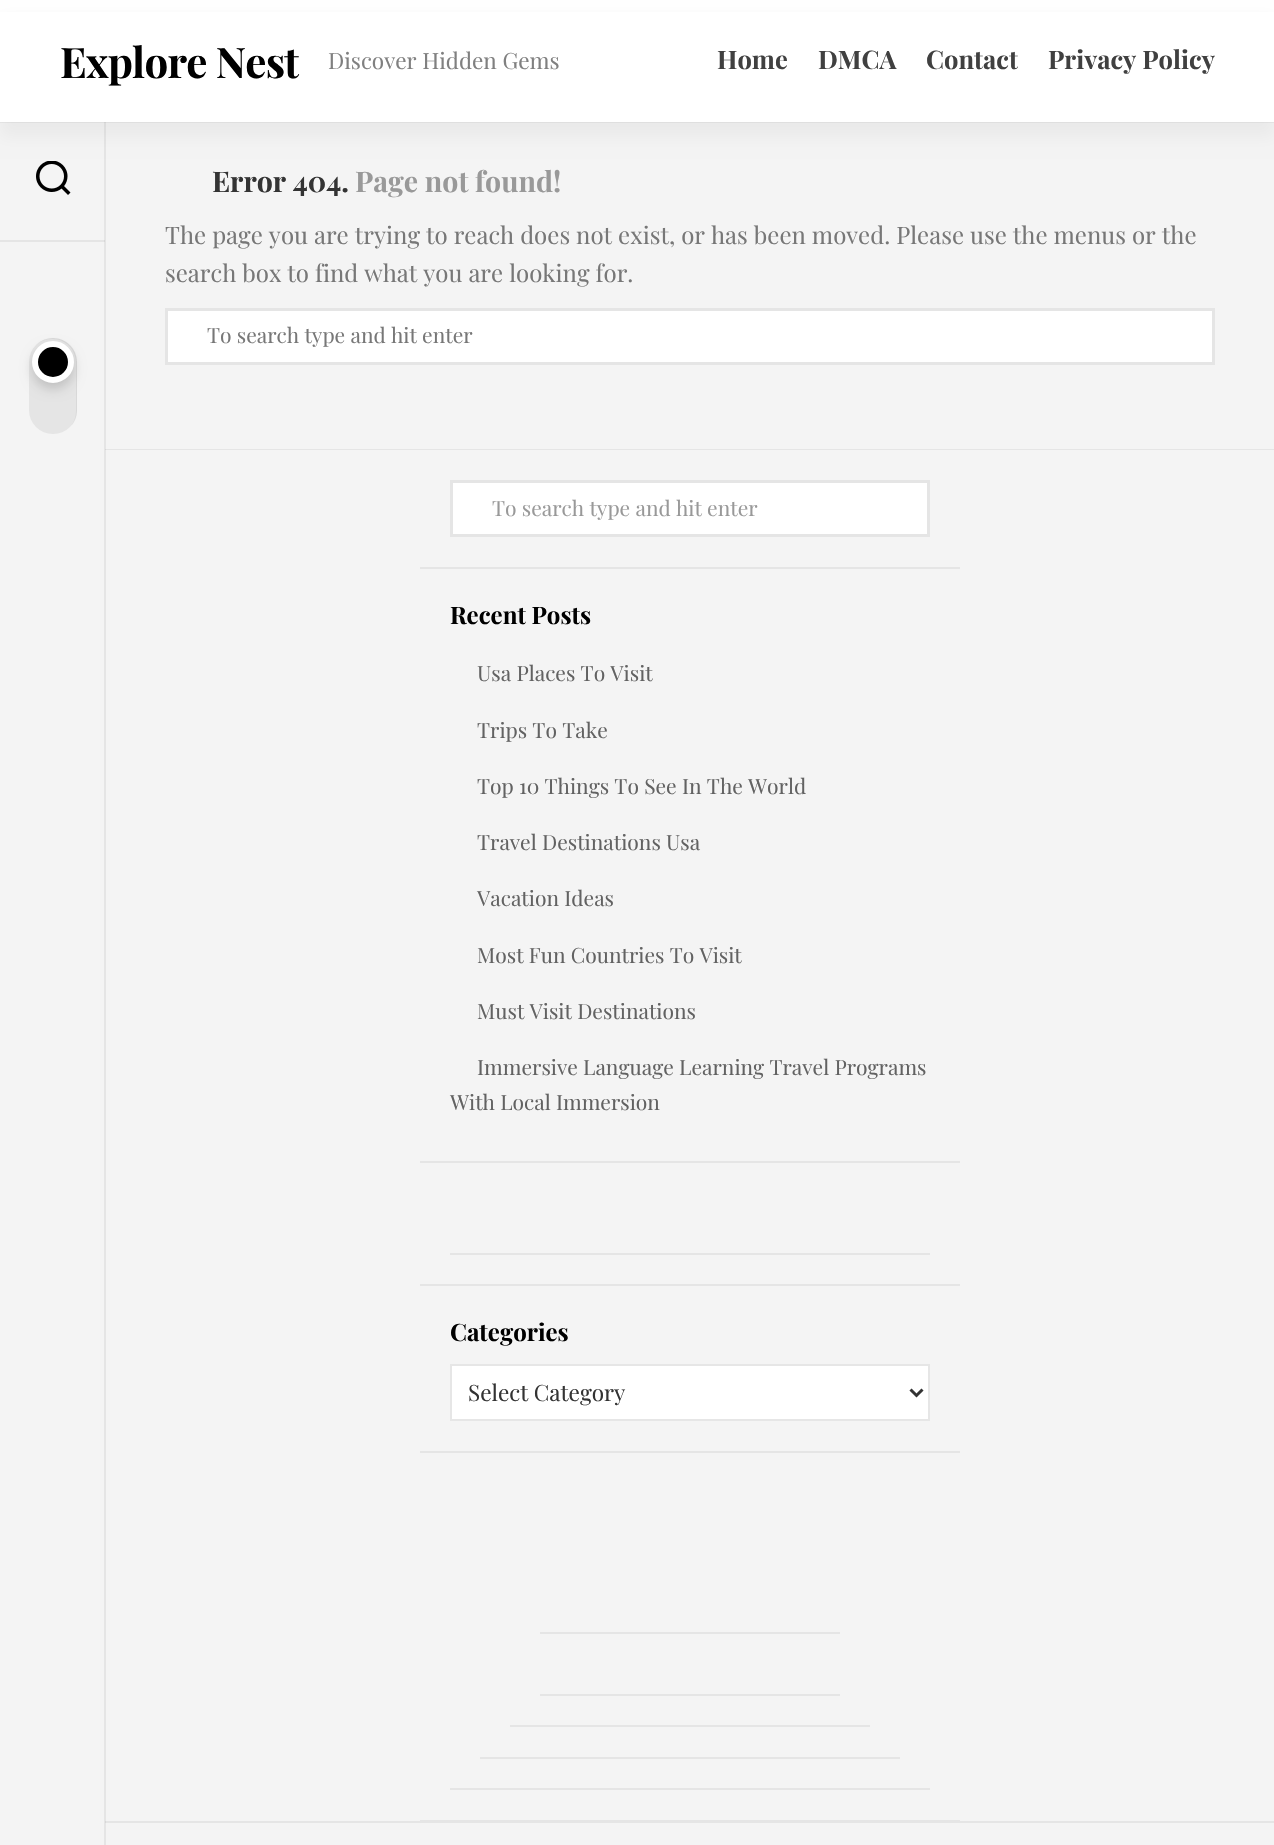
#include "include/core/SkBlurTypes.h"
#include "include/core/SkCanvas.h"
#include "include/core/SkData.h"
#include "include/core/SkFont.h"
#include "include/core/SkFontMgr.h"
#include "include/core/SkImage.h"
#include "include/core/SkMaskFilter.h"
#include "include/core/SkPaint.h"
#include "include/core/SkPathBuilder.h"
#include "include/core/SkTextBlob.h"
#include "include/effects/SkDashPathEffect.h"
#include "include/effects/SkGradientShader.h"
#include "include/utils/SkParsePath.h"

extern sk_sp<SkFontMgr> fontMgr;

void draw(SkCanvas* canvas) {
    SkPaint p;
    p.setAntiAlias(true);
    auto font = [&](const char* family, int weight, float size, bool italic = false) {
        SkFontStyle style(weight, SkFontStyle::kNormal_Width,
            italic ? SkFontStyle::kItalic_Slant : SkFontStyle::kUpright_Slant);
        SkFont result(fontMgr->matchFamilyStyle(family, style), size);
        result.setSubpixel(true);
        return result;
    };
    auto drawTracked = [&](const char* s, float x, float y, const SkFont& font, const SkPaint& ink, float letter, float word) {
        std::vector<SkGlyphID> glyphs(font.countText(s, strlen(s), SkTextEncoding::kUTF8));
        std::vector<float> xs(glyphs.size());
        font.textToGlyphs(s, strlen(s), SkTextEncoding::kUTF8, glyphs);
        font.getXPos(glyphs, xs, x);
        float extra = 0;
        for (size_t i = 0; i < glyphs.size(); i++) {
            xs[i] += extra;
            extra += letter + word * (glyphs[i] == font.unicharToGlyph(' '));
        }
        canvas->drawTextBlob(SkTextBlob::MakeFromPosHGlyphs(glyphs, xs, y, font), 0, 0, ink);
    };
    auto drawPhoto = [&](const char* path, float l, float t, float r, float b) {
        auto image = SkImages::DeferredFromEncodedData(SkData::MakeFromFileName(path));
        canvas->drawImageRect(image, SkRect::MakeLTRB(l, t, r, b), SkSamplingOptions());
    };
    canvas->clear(0xFFFFFFFF);
    {
        const struct { float l, t, r, b; SkColor color; } items[] = {
            {0, 123, 104, 1845, 0xFFF4F4F4},
            {0, 240, 105, 242, 0xFFE5E5E5},
            {0, 122, 1274, 123, 0xFFE8E8E8},
            {104, 122, 105, 1845, 0xFFE5E5E5},
            {104, 122, 105, 123, 0xFFDADADA},
            {106, 123, 1274, 449, 0xFFF4F4F4},
            {105, 122, 106, 450, 0xFFE5E5E5},
            {105, 122, 106, 123, 0xFFDADADA},
        };
        for (auto [l, t, r, b, color] : items) {
            p.setColor(color);
            canvas->drawRect(SkRect::MakeLTRB(l, t, r, b), p);
        }
    }
    p.setColor(0x0A000000);
    p.setMaskFilter(SkMaskFilter::MakeBlur(kNormal_SkBlurStyle, 7.5f));
    canvas->drawRect(SkRect::MakeLTRB(0, 17, 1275, 137), p);
    p.setMaskFilter(nullptr);
    p.setColor(0xFFFFFFFF);
    canvas->drawRect(SkRect::MakeLTRB(0, 12, 1274, 122), p);
    auto font1 = font("Playfair Display", 700, 42);
    p.setColor(0xFF000000);
    drawTracked("Explore Nest", 60, 78, font1, p, -0.75f, 0);
    auto font2 = font("Playfair Display", 400, 22.5f);
    p.setColor(0xFF808080);
    canvas->drawString("Discover Hidden Gems", 328, 69, font2, p);
    auto font3 = font("Playfair Display", 700, 25.5f);
    p.setColor(0xFF404040);
    {
        const struct { const char* s; float x, y; } items[] = {
            {"Home", 717, 69},
            {"DMCA", 818, 69},
            {"Contact", 926, 69},
            {"Privacy Policy", 1048, 69},
        };
        for (auto [s, x, y] : items) {
            canvas->drawString(s, x, y, font3, p);
        }
    }
    p.setColor(0xFFD7D7D7);
    canvas->drawRect(SkRect::MakeLTRB(104, 240, 105, 242), p);
    drawPhoto("media/1.png", 36, 161, 71, 195);
    p.setColor(0xFFE5E5E5);
    canvas->drawRoundRect(SkRect::MakeLTRB(29, 338, 77, 434), 24, 24, p);
    p.setColor(0x0D000000);
    canvas->drawPath(SkPathBuilder().moveTo(52, 339).cubicTo(66, 339, 76, 350, 76, 363).lineTo(76, 411).cubicTo(76, 417, 74, 422, 71, 426).cubicTo(75, 422, 77, 416, 77, 410).lineTo(77, 362).cubicTo(77, 349, 66, 338, 53, 338).cubicTo(45, 338, 38, 342, 34, 347).cubicTo(38, 342, 45, 339, 52, 339).close().detach(), p);
    p.setColor(0x29000000);
    p.setMaskFilter(SkMaskFilter::MakeBlur(kNormal_SkBlurStyle, 6));
    canvas->drawRoundRect(SkRect::MakeLTRB(32, 347, 74, 389), 21, 21, p);
    p.setMaskFilter(nullptr);
    p.setColor(0xFF000000);
    canvas->drawCircle(53, 362, 18, p);
    p.setStyle(SkPaint::kStroke_Style);
    p.setStrokeWidth(6);
    p.setColor(0xFFFFFFFF);
    canvas->drawCircle(53, 362, 18, p);
    p.setStyle(SkPaint::kFill_Style);
    p.setColor(0xFFE5E5E5);
    canvas->drawRect(SkRect::MakeLTRB(105, 449, 1274, 450), p);
    p.setColor(0xFFD7D7D7);
    canvas->drawRect(SkRect::MakeLTRB(105, 449, 106, 450), p);
    auto font4 = font("Playfair Display", 700, 28.5f);
    p.setColor(0xFF333333);
    canvas->drawString("Error 404.", 212, 192, font4, p);
    p.setColor(0xFF999999);
    canvas->drawString("Page not found!", 355, 192, font4, p);
    auto font5 = font("Playfair Display", 400, 24);
    p.setColor(0xFF777777);
    canvas->drawString("The page you are trying to reach does not exist, or has been moved. Please use the menus or the", 165, 244, font5, p);
    canvas->drawString("search box to find what you are looking for.", 165, 282, font5, p);
    p.setColor(0xFFFFFFFF);
    canvas->drawRect(SkRect::MakeLTRB(166.5f, 309.5f, 1213.5f, 363.5f), p);
    p.setStyle(SkPaint::kStroke_Style);
    p.setStrokeWidth(3);
    p.setColor(0xFFE5E5E5);
    canvas->drawRect(SkRect::MakeLTRB(166.5f, 309.5f, 1213.5f, 363.5f), p);
    auto font6 = font("Playfair Display", 400, 21);
    p.setStyle(SkPaint::kFill_Style);
    p.setColor(0xFF777777);
    canvas->drawString("To search type and hit enter", 207, 343, font6, p);
    {
        const struct { float l, t, r, b; SkColor color; } items[] = {
            {106, 450, 1274, 1821, 0xFFF4F4F4},
            {105, 450, 106, 1845, 0xFFE5E5E5},
            {420, 567, 960, 569, 0xFFE5E5E5},
        };
        for (auto [l, t, r, b, color] : items) {
            p.setColor(color);
            canvas->drawRect(SkRect::MakeLTRB(l, t, r, b), p);
        }
    }
    p.setColor(0xFFFFFFFF);
    canvas->drawRect(SkRect::MakeLTRB(451.5f, 481.5f, 928.5f, 535.5f), p);
    p.setStyle(SkPaint::kStroke_Style);
    p.setColor(0xFFE5E5E5);
    canvas->drawRect(SkRect::MakeLTRB(451.5f, 481.5f, 928.5f, 535.5f), p);
    p.setStyle(SkPaint::kFill_Style);
    p.setColor(0xFF999999);
    canvas->drawString("To search type and hit enter", 492, 516, font6, p);
    p.setColor(0xFFE5E5E5);
    canvas->drawRect(SkRect::MakeLTRB(420, 1161, 960, 1163), p);
    auto font7 = font("Playfair Display", 700, 24);
    p.setColor(0xFF000000);
    canvas->drawString("Recent Posts", 450, 624, font7, p);
    p.setColor(0xFF626262);
    {
        const struct { const char* s; float x, y; } items[] = {
            {"Usa Places To Visit", 477, 681},
            {"Trips To Take", 477, 738},
            {"Top 10 Things To See In The World", 477, 794},
            {"Travel Destinations Usa", 477, 850},
            {"Vacation Ideas", 477, 906},
            {"Most Fun Countries To Visit", 477, 963},
            {"Must Visit Destinations", 477, 1019},
            {"Immersive Language Learning Travel Programs", 477, 1075},
            {"With Local Immersion", 450, 1110},
        };
        for (auto [s, x, y] : items) {
            canvas->drawString(s, x, y, font6, p);
        }
    }
    {
        const struct { float l, t, r, b; SkColor color; } items[] = {
            {420, 1284, 960, 1286, 0xFFE5E5E5},
            {450, 1253, 930, 1255, 0xFFE5E5E5},
            {420, 1451, 960, 1453, 0xFFE5E5E5},
        };
        for (auto [l, t, r, b, color] : items) {
            p.setColor(color);
            canvas->drawRect(SkRect::MakeLTRB(l, t, r, b), p);
        }
    }
    p.setColor(0xFF000000);
    canvas->drawString("Categories", 450, 1341, font7, p);
    p.setColor(0xFFFFFFFF);
    canvas->drawRect(SkRect::MakeLTRB(451, 1365, 929, 1420), p);
    p.setStyle(SkPaint::kStroke_Style);
    p.setStrokeWidth(2);
    p.setColor(0xFFE6E6E6);
    canvas->drawRect(SkRect::MakeLTRB(451, 1365, 929, 1420), p);
    p.setStrokeWidth(3);
    p.setColor(0xFF333333);
    canvas->drawPath(SkPathBuilder().moveTo(910.5f, 1389.5f).lineTo(916.5f, 1395.5f).lineTo(922.5f, 1389.5f).detach(), p);
    p.setStyle(SkPaint::kFill_Style);
    canvas->drawString("Select Category", 468, 1401, font2, p);
    {
        const struct { float l, t, r, b; SkColor color; } items[] = {
            {420, 1820, 960, 1821, 0xFFE5E5E5},
            {450, 1788, 930, 1790, 0xFFE5E5E5},
            {480, 1757, 900, 1759, 0xFFE5E5E5},
            {510, 1725, 870, 1727, 0xFFE5E5E5},
            {540, 1632, 840, 1634, 0xFFE5E5E5},
            {540, 1694, 840, 1696, 0xFFE5E5E5},
            {106, 1823, 1274, 1845, 0xFFF4F4F4},
            {105, 1821, 1274, 1823, 0xFFE5E5E5},
            {105, 1821, 106, 1823, 0xFFD7D7D7},
        };
        for (auto [l, t, r, b, color] : items) {
            p.setColor(color);
            canvas->drawRect(SkRect::MakeLTRB(l, t, r, b), p);
        }
    }
}
